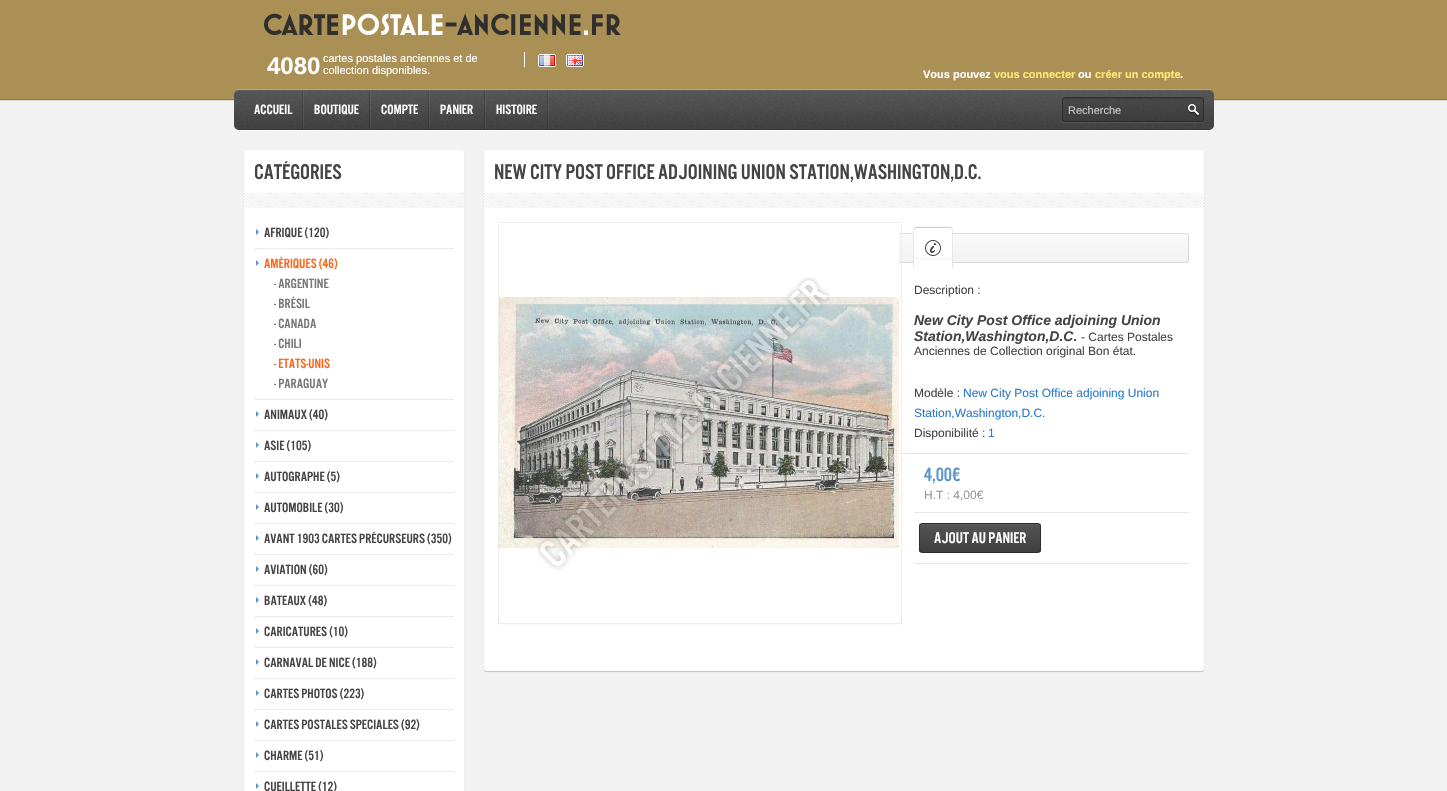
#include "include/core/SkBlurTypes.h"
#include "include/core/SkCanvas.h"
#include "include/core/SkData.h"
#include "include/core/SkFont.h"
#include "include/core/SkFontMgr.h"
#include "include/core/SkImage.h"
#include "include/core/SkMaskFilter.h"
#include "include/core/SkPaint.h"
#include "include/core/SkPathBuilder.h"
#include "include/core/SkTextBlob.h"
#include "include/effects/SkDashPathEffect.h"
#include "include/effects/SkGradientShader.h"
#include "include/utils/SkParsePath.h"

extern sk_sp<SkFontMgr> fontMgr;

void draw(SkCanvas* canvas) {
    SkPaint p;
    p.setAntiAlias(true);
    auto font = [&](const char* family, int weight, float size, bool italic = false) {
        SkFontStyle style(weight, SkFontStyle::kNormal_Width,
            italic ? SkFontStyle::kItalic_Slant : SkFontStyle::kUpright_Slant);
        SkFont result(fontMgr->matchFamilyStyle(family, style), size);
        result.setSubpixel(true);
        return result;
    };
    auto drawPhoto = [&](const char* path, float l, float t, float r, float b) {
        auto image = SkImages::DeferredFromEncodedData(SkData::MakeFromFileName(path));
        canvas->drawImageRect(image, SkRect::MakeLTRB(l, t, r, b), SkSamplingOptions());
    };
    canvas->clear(0xFFF2F2F2);
    {
        const struct { float l, t, r, b; SkColor color; } items[] = {
            {0, 100, 1447, 101, 0xFFDADADA},
            {0, 0, 1447, 99, 0xFFAB9055},
            {0, 99, 1447, 100, 0xFF917A48},
        };
        for (auto [l, t, r, b, color] : items) {
            p.setColor(color);
            canvas->drawRect(SkRect::MakeLTRB(l, t, r, b), p);
        }
    }
    drawPhoto("media/1.png", 264, 13, 621, 35);
    auto font1 = font("Liberation Sans", 700, 24);
    p.setColor(0xFFFFFFFF);
    canvas->drawString("4080", 267, 74, font1, p);
    auto font2 = font("Liberation Sans", 400, 11);
    canvas->drawString("cartes postales anciennes et de", 323, 62, font2, p);
    canvas->drawString("collection disponibles.", 323, 74, font2, p);
    canvas->drawRect(SkRect::MakeLTRB(524, 52, 525, 67), p);
    p.setStyle(SkPaint::kStroke_Style);
    p.setStrokeWidth(1);
    canvas->drawRoundRect(SkRect::MakeLTRB(538.5f, 54.5f, 555.5f, 66.5f), 1.5f, 1.5f, p);
    canvas->drawRoundRect(SkRect::MakeLTRB(566.5f, 54.5f, 583.5f, 66.5f), 1.5f, 1.5f, p);
    drawPhoto("media/2.png", 539, 55, 555, 66);
    drawPhoto("media/3.png", 567, 55, 583, 66);
    auto font3 = font("Liberation Sans", 700, 11);
    p.setStyle(SkPaint::kFill_Style);
    canvas->drawString("Vous pouvez", 923, 78, font3, p);
    p.setColor(0xFFFFE873);
    canvas->drawString("vous connecter", 994, 78, font3, p);
    p.setColor(0xFFFFFFFF);
    canvas->drawString("ou", 1078, 78, font3, p);
    p.setColor(0xFFFFE873);
    canvas->drawString("créer un compte", 1095, 78, font3, p);
    p.setColor(0xFFFFFFFF);
    canvas->drawString(".", 1180, 78, font3, p);
    p.setColor(0xFFBCA677);
    canvas->drawPath(SkPathBuilder().moveTo(239, 89).cubicTo(236, 89, 234, 92, 234, 95).cubicTo(234, 92, 236, 90, 239, 90).lineTo(1209, 90).cubicTo(1212, 90, 1214, 92, 1214, 95).cubicTo(1214, 92, 1212, 89, 1209, 89).close().detach(), p);
    p.setColor(0xFFFFFFFF);
    canvas->drawPath(SkPathBuilder().moveTo(234, 125).cubicTo(234, 128, 236, 131, 239, 131).lineTo(1209, 131).cubicTo(1212, 131, 1214, 128, 1214, 125).cubicTo(1214, 128, 1212, 130, 1209, 130).lineTo(239, 130).cubicTo(236, 130, 234, 128, 234, 125).close().detach(), p);
    p.setColor(0xFF555555);
    canvas->drawRoundRect(SkRect::MakeLTRB(234, 90, 1214, 130), 5, 5, p);
    drawPhoto("media/4.png", 234, 90, 1214, 130);
    drawPhoto("media/5.png", 302, 90, 304, 130);
    auto font4 = font("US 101", 400, 14);
    p.setColor(0xFFFFFFFF);
    canvas->drawString("Accueil", 254, 114, font4, p);
    drawPhoto("media/6.png", 369, 90, 371, 130);
    canvas->drawString("Boutique", 314, 114, font4, p);
    drawPhoto("media/7.png", 428, 90, 430, 130);
    canvas->drawString("Compte", 381, 114, font4, p);
    drawPhoto("media/8.png", 484, 90, 486, 130);
    canvas->drawString("Panier", 440, 114, font4, p);
    drawPhoto("media/9.png", 547, 90, 549, 130);
    canvas->drawString("Histoire", 496, 114, font4, p);
    p.setColor(0x1AFFFFFF);
    canvas->drawPath(SkPathBuilder().moveTo(1062, 119).lineTo(1062, 120).cubicTo(1062, 122, 1063, 123, 1065, 123).lineTo(1201, 123).cubicTo(1203, 123, 1204, 122, 1204, 120).lineTo(1204, 119).cubicTo(1204, 121, 1203, 122, 1201, 122).lineTo(1065, 122).cubicTo(1063, 122, 1062, 121, 1062, 119).close().detach(), p);
    p.setColor(0x1F000000);
    canvas->drawRoundRect(SkRect::MakeLTRB(1062, 97, 1204, 122), 3, 3, p);
    p.setColor(0x1A000000);
    canvas->drawPath(SkPathBuilder().moveTo(1065, 99).lineTo(1201, 99).cubicTo(1202, 99, 1203, 100, 1203, 101).cubicTo(1203, 100, 1203, 98, 1201, 98).lineTo(1065, 98).cubicTo(1063, 98, 1063, 100, 1063, 101).cubicTo(1063, 100, 1064, 99, 1065, 99).close().detach(), p);
    p.setStyle(SkPaint::kStroke_Style);
    p.setColor(0x4D000000);
    canvas->drawRoundRect(SkRect::MakeLTRB(1062.5f, 97.5f, 1203.5f, 121.5f), 2.5f, 2.5f, p);
    p.setStyle(SkPaint::kFill_Style);
    p.setColor(0x0D000000);
    canvas->drawPath(SkPathBuilder().moveTo(1066, 99).lineTo(1180, 99).cubicTo(1182, 99, 1183, 100, 1183, 102).cubicTo(1183, 100, 1182, 98, 1180, 98).lineTo(1085, 98).cubicTo(1084, 98, 1063, 93, 1063, 102).cubicTo(1063, 100, 1064, 99, 1066, 99).close().detach(), p);
    p.setColor(0xFFCCCCCC);
    canvas->drawString("Recherche", 1068, 114, font2, p);
    drawPhoto("media/10.png", 1187, 104, 1200, 117);
    p.setColor(0x33000000);
    p.setMaskFilter(SkMaskFilter::MakeBlur(kNormal_SkBlurStyle, 0.5f));
    canvas->drawRoundRect(SkRect::MakeLTRB(244, 151, 464, 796), 3, 3, p);
    p.setMaskFilter(nullptr);
    p.setColor(0xFFFFFFFF);
    canvas->drawRoundRect(SkRect::MakeLTRB(244, 150, 464, 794), 3, 3, p);
    auto font5 = font("US 101", 400, 22);
    p.setColor(0xFF444444);
    canvas->drawString("Catégories", 254, 179, font5, p);
    drawPhoto("media/11.png", 244, 193, 464, 208);
    p.setColor(0xFFEBEBEB);
    canvas->drawRect(SkRect::MakeLTRB(254, 248, 454, 249), p);
    p.setColor(0xFF5C94CC);
    canvas->drawPath(SkPathBuilder().moveTo(256, 235).lineTo(256, 229).lineTo(259, 232).close().detach(), p);
    p.setColor(0xFF444444);
    canvas->drawString("Afrique (120)", 264, 237, font4, p);
    p.setColor(0xFFEBEBEB);
    canvas->drawRect(SkRect::MakeLTRB(254, 399, 454, 400), p);
    p.setColor(0xFF5C94CC);
    canvas->drawPath(SkPathBuilder().moveTo(256, 266).lineTo(256, 260).lineTo(259, 263).close().detach(), p);
    p.setColor(0xFFFF6619);
    canvas->drawString("Amériques (46)", 264, 268, font4, p);
    p.setColor(0xFF777777);
    {
        const struct { const char* s; float x, y; } items[] = {
            {"- Argentine", 274, 288},
            {"- Brésil", 274, 308},
            {"- Canada", 274, 328},
            {"- Chili", 274, 348},
        };
        for (auto [s, x, y] : items) {
            canvas->drawString(s, x, y, font4, p);
        }
    }
    p.setColor(0xFFFF6619);
    canvas->drawString("- Etats-unis", 274, 368, font4, p);
    p.setColor(0xFF777777);
    canvas->drawString("- Paraguay", 274, 388, font4, p);
    p.setColor(0xFFEBEBEB);
    canvas->drawRect(SkRect::MakeLTRB(254, 430, 454, 431), p);
    p.setColor(0xFF5C94CC);
    canvas->drawPath(SkPathBuilder().moveTo(256, 417).lineTo(256, 411).lineTo(259, 414).close().detach(), p);
    p.setColor(0xFF444444);
    canvas->drawString("Animaux (40)", 264, 419, font4, p);
    p.setColor(0xFFEBEBEB);
    canvas->drawRect(SkRect::MakeLTRB(254, 461, 454, 462), p);
    p.setColor(0xFF5C94CC);
    canvas->drawPath(SkPathBuilder().moveTo(256, 448).lineTo(256, 442).lineTo(259, 445).close().detach(), p);
    p.setColor(0xFF444444);
    canvas->drawString("Asie (105)", 264, 450, font4, p);
    p.setColor(0xFFEBEBEB);
    canvas->drawRect(SkRect::MakeLTRB(254, 492, 454, 493), p);
    p.setColor(0xFF5C94CC);
    canvas->drawPath(SkPathBuilder().moveTo(256, 479).lineTo(256, 473).lineTo(259, 476).close().detach(), p);
    p.setColor(0xFF444444);
    canvas->drawString("Autographe (5)", 264, 481, font4, p);
    p.setColor(0xFFEBEBEB);
    canvas->drawRect(SkRect::MakeLTRB(254, 523, 454, 524), p);
    p.setColor(0xFF5C94CC);
    canvas->drawPath(SkPathBuilder().moveTo(256, 510).lineTo(256, 504).lineTo(259, 507).close().detach(), p);
    p.setColor(0xFF444444);
    canvas->drawString("Automobile (30)", 264, 512, font4, p);
    p.setColor(0xFFEBEBEB);
    canvas->drawRect(SkRect::MakeLTRB(254, 554, 454, 555), p);
    p.setColor(0xFF5C94CC);
    canvas->drawPath(SkPathBuilder().moveTo(256, 541).lineTo(256, 535).lineTo(259, 538).close().detach(), p);
    p.setColor(0xFF444444);
    canvas->drawString("Avant 1903 Cartes précurseurs (350)", 264, 543, font4, p);
    p.setColor(0xFFEBEBEB);
    canvas->drawRect(SkRect::MakeLTRB(254, 585, 454, 586), p);
    p.setColor(0xFF5C94CC);
    canvas->drawPath(SkPathBuilder().moveTo(256, 572).lineTo(256, 566).lineTo(259, 569).close().detach(), p);
    p.setColor(0xFF444444);
    canvas->drawString("Aviation (60)", 264, 574, font4, p);
    p.setColor(0xFFEBEBEB);
    canvas->drawRect(SkRect::MakeLTRB(254, 616, 454, 617), p);
    p.setColor(0xFF5C94CC);
    canvas->drawPath(SkPathBuilder().moveTo(256, 603).lineTo(256, 597).lineTo(259, 600).close().detach(), p);
    p.setColor(0xFF444444);
    canvas->drawString("Bateaux (48)", 264, 605, font4, p);
    p.setColor(0xFFEBEBEB);
    canvas->drawRect(SkRect::MakeLTRB(254, 647, 454, 648), p);
    p.setColor(0xFF5C94CC);
    canvas->drawPath(SkPathBuilder().moveTo(256, 634).lineTo(256, 628).lineTo(259, 631).close().detach(), p);
    p.setColor(0xFF444444);
    canvas->drawString("Caricatures (10)", 264, 636, font4, p);
    p.setColor(0xFFEBEBEB);
    canvas->drawRect(SkRect::MakeLTRB(254, 678, 454, 679), p);
    p.setColor(0xFF5C94CC);
    canvas->drawPath(SkPathBuilder().moveTo(256, 665).lineTo(256, 659).lineTo(259, 662).close().detach(), p);
    p.setColor(0xFF444444);
    canvas->drawString("Carnaval de nice (188)", 264, 667, font4, p);
    p.setColor(0xFFEBEBEB);
    canvas->drawRect(SkRect::MakeLTRB(254, 709, 454, 710), p);
    p.setColor(0xFF5C94CC);
    canvas->drawPath(SkPathBuilder().moveTo(256, 696).lineTo(256, 690).lineTo(259, 693).close().detach(), p);
    p.setColor(0xFF444444);
    canvas->drawString("Cartes photos (223)", 264, 698, font4, p);
    p.setColor(0xFFEBEBEB);
    canvas->drawRect(SkRect::MakeLTRB(254, 740, 454, 741), p);
    p.setColor(0xFF5C94CC);
    canvas->drawPath(SkPathBuilder().moveTo(256, 727).lineTo(256, 721).lineTo(259, 724).close().detach(), p);
    p.setColor(0xFF444444);
    canvas->drawString("Cartes postales speciales (92)", 264, 729, font4, p);
    p.setColor(0xFFEBEBEB);
    canvas->drawRect(SkRect::MakeLTRB(254, 771, 454, 772), p);
    p.setColor(0xFF5C94CC);
    canvas->drawPath(SkPathBuilder().moveTo(256, 758).lineTo(256, 752).lineTo(259, 755).close().detach(), p);
    p.setColor(0xFF444444);
    canvas->drawString("Charme (51)", 264, 760, font4, p);
    p.setColor(0xFF5C94CC);
    canvas->drawPath(SkPathBuilder().moveTo(256, 789).lineTo(256, 783).lineTo(259, 786).close().detach(), p);
    p.setColor(0xFF444444);
    canvas->drawString("Cueillette (12)", 264, 791, font4, p);
    p.setColor(0x33000000);
    p.setMaskFilter(SkMaskFilter::MakeBlur(kNormal_SkBlurStyle, 0.5f));
    canvas->drawRoundRect(SkRect::MakeLTRB(484, 151, 1204, 672), 3, 3, p);
    p.setMaskFilter(nullptr);
    p.setColor(0xFFFFFFFF);
    canvas->drawRoundRect(SkRect::MakeLTRB(484, 150, 1204, 671), 3, 3, p);
    p.setColor(0xFF444444);
    canvas->drawString("New City Post Office adjoining Union Station,Washington,D.C.", 494, 179, font5, p);
    drawPhoto("media/12.png", 484, 193, 1204, 208);
    p.setColor(0xFFFAFAFA);
    canvas->drawRect(SkRect::MakeLTRB(498, 624, 902, 625), p);
    drawPhoto("media/15.png", 899, 233, 1189, 262);
    p.setStyle(SkPaint::kStroke_Style);
    p.setColor(0xFFE1E1E1);
    canvas->drawPath(SkPathBuilder().moveTo(500, 234).lineTo(502, 233.5f).lineTo(1186, 233.5f).lineTo(1188, 234).detach(), p);
    p.setColor(0xFFDCDCDC);
    canvas->drawPath(SkPathBuilder().moveTo(1188, 234).cubicTo(1188, 234.5f, 1188.5f, 235.5f, 1188.5f, 236).lineTo(1188.5f, 260).cubicTo(1188.5f, 260.5f, 1188, 261.5f, 1188, 262).detach(), p);
    p.setColor(0xFFD9D9D9);
    canvas->drawPath(SkPathBuilder().moveTo(1188, 262).lineTo(1186, 262.5f).lineTo(502, 262.5f).lineTo(500, 262).detach(), p);
    p.setStyle(SkPaint::kFill_Style);
    p.setColor(0xFFE7E7E7);
    canvas->drawRect(SkRect::MakeLTRB(899, 453, 1189, 454), p);
    p.setStyle(SkPaint::kStroke_Style);
    p.setColor(0xFFEDEDED);
    canvas->drawRect(SkRect::MakeLTRB(498.5f, 222.5f, 901.5f, 623.5f), p);
    drawPhoto("media/13.png", 499, 233, 899, 551);
    drawPhoto("media/14.png", 537, 277, 830, 570);
    p.setStyle(SkPaint::kFill_Style);
    p.setColor(0xFFF5F5F5);
    canvas->drawPath(SkPathBuilder().moveTo(917, 226).cubicTo(914, 226, 913, 228, 913, 231).cubicTo(913, 229, 915, 227, 917, 227).lineTo(949, 227).cubicTo(951, 227, 953, 229, 953, 231).cubicTo(953, 228, 952, 226, 949, 226).close().detach(), p);
    p.setColor(0xFFFFFFFF);
    canvas->drawPath(SkPathBuilder().moveTo(917, 227).lineTo(949, 227).cubicTo(951, 227, 953, 229, 953, 231).lineTo(953, 268).lineTo(913, 268).lineTo(913, 231).cubicTo(913, 229, 915, 227, 917, 227).close().detach(), p);
    p.setColor(0xFFFAFAFA);
    canvas->drawRect(SkRect::MakeLTRB(913, 257, 953, 261), p);
    p.setColor(0xFFCFCFCF);
    canvas->drawPath(SkPathBuilder().moveTo(917, 227).cubicTo(916, 227, 915, 227.5f, 914, 228).lineTo(915, 229).cubicTo(915, 228, 916, 228, 917, 228).lineTo(949, 228).cubicTo(950, 228, 951, 228, 951, 229).lineTo(952, 228).cubicTo(951, 227.5f, 950, 227, 949, 227).close().detach(), p);
    p.setColor(0xFFE6E6E6);
    canvas->drawPath(SkPathBuilder().moveTo(952, 268).lineTo(953, 268).lineTo(953, 231).cubicTo(953, 230, 952.5f, 229, 952, 228).lineTo(951, 229).cubicTo(952, 229, 952, 230, 952, 231).close().moveTo(913, 268).lineTo(914, 268).lineTo(914, 231).cubicTo(914, 230, 914, 229, 915, 229).lineTo(914, 228).cubicTo(913.5f, 229, 913, 230, 913, 231).close().detach(), p);
    drawPhoto("media/16.png", 925, 240, 941, 256);
    auto font6 = font("Liberation Sans", 400, 12);
    p.setColor(0xFF444444);
    canvas->drawString("Description :", 914, 294, font6, p);
    auto font7 = font("Liberation Sans", 700, 14, true);
    canvas->drawString("New City Post Office adjoining Union", 914, 325, font7, p);
    canvas->drawString("Station,Washington,D.C.", 914, 341, font7, p);
    {
        const struct { const char* s; float x, y; } items[] = {
            {"- Cartes Postales", 1081, 341},
            {"Anciennes de Collection original Bon état.", 914, 355},
            {"Modèle :", 914, 397},
        };
        for (auto [s, x, y] : items) {
            canvas->drawString(s, x, y, font6, p);
        }
    }
    p.setColor(0xFF297ACC);
    canvas->drawString("New City Post Office adjoining Union", 963, 397, font6, p);
    canvas->drawString("Station,Washington,D.C.", 914, 417, font6, p);
    p.setColor(0xFF444444);
    canvas->drawString("Disponibilité :", 914, 437, font6, p);
    p.setColor(0xFF297ACC);
    canvas->drawString("1", 988, 437, font6, p);
    p.setColor(0xFFE7E7E7);
    canvas->drawRect(SkRect::MakeLTRB(914, 512, 1189, 513), p);
    auto font8 = font("US 101", 400, 20);
    p.setColor(0xFF5C94CC);
    canvas->drawString("4,00€", 924, 481, font8, p);
    p.setColor(0xFF999999);
    canvas->drawString("H.T : 4,00€", 924, 499, font6, p);
    p.setColor(0xFFE7E7E7);
    canvas->drawRect(SkRect::MakeLTRB(914, 563, 1189, 564), p);
    drawPhoto("media/17.png", 919, 523, 1041, 553);
    p.setStyle(SkPaint::kStroke_Style);
    p.setColor(0xFF2C2C2C);
    canvas->drawRoundRect(SkRect::MakeLTRB(919.5f, 523.5f, 1040.5f, 552.5f), 2.5f, 2.5f, p);
    auto font9 = font("US 101", 400, 16);
    p.setStyle(SkPaint::kFill_Style);
    p.setColor(0xFFFFFFFF);
    canvas->drawString("Ajout au panier", 934, 543, font9, p);
}
